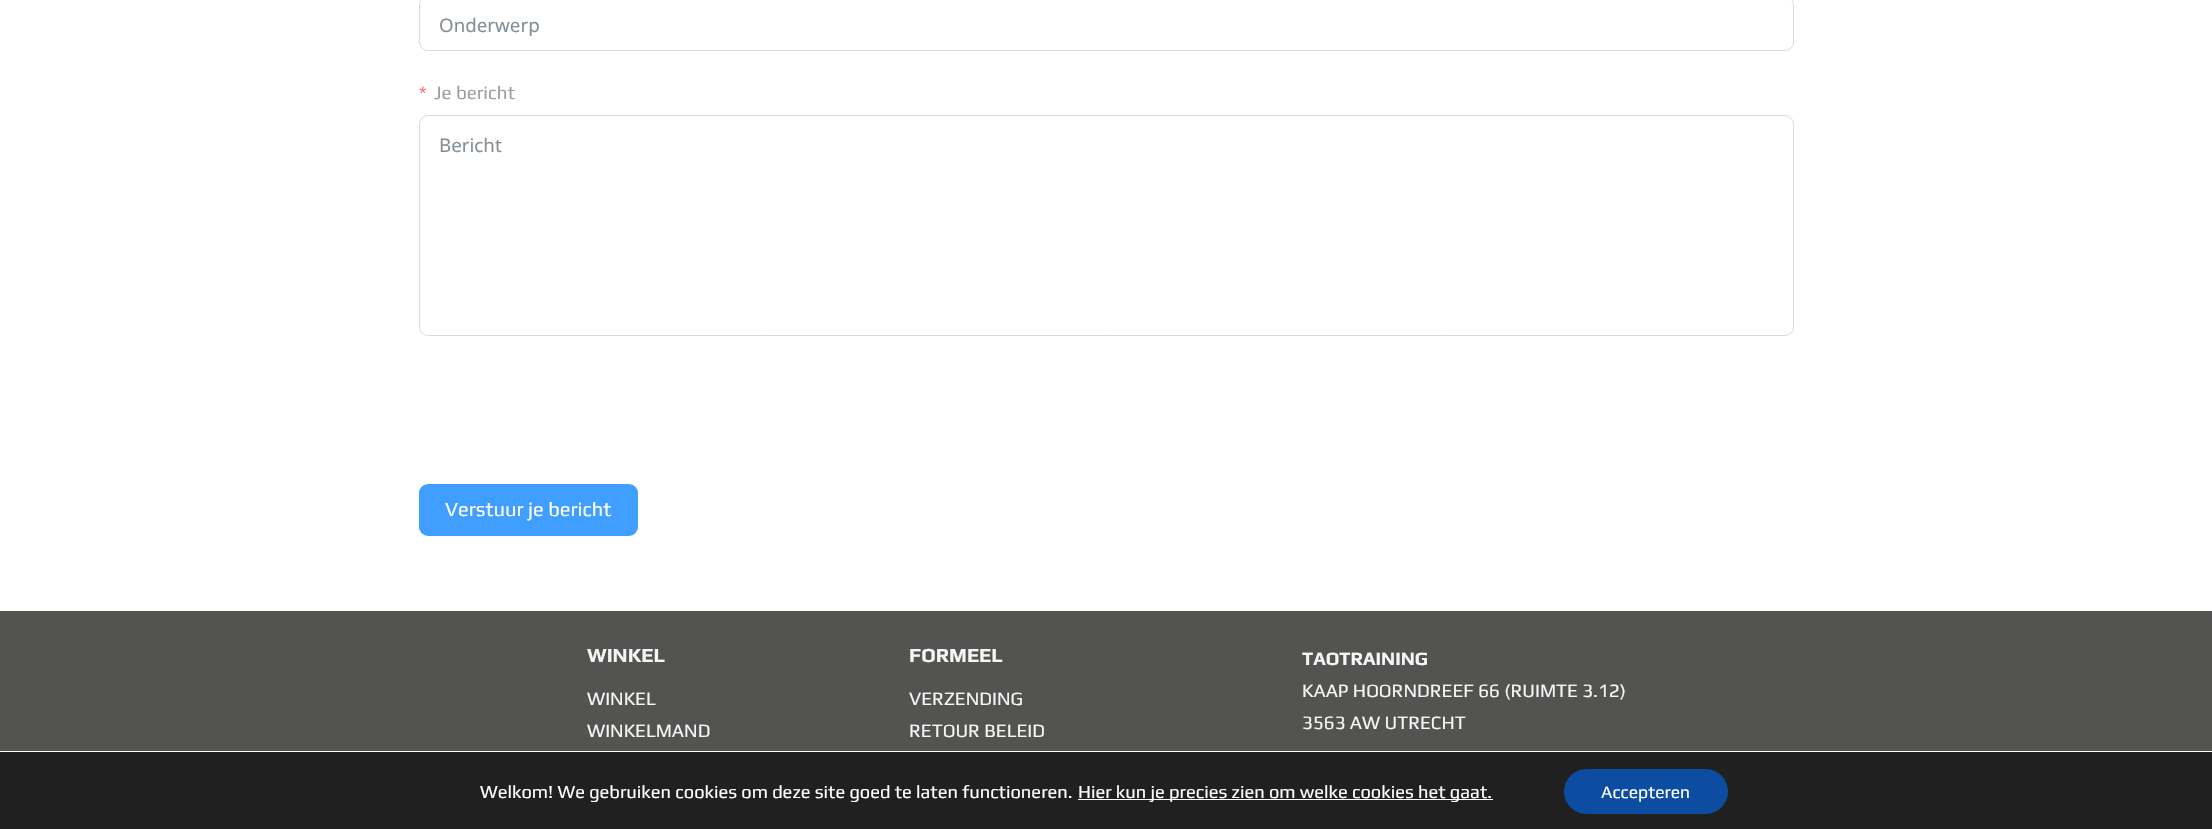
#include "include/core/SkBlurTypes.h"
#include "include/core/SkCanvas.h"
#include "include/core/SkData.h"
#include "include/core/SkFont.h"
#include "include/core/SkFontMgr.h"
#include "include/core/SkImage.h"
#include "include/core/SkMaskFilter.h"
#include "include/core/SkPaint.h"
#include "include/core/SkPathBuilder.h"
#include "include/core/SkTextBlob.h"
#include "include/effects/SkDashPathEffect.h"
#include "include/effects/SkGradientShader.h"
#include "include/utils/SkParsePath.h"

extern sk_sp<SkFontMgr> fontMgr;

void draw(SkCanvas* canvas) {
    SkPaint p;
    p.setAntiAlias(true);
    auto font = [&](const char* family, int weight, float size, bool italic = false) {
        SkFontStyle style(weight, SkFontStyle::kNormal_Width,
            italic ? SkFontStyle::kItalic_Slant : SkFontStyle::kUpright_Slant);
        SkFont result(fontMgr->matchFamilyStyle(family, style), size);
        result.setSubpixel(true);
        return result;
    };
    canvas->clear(0xFFFFFFFF);
    p.setStyle(SkPaint::kStroke_Style);
    p.setStrokeWidth(1);
    p.setColor(0xFFDADBDD);
    canvas->drawRoundRect(SkRect::MakeLTRB(419.5f, -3.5f, 1793.5f, 50.5f), 8.5f, 8.5f, p);
    canvas->save();
    canvas->clipRect(SkRect::MakeLTRB(439, 11, 1774, 36));
    auto font1 = font("Noto Sans", 400, 18.75f);
    p.setStyle(SkPaint::kFill_Style);
    p.setColor(0xFF868E96);
    canvas->drawString("Onderwerp", 439, 32, font1, p);
    canvas->restore();
    auto font2 = font("Play", 400, 18.75f);
    p.setColor(0xFFF56C6C);
    canvas->drawString("*", 419, 99, font2, p);
    p.setColor(0xFF9E9E9E);
    canvas->drawString("Je bericht", 434, 99, font2, p);
    p.setStyle(SkPaint::kStroke_Style);
    p.setColor(0xFFDADBDD);
    canvas->drawRoundRect(SkRect::MakeLTRB(419.5f, 115.5f, 1793.5f, 335.5f), 8.5f, 8.5f, p);
    p.setStyle(SkPaint::kFill_Style);
    p.setColor(0xFF868E96);
    canvas->drawString("Bericht", 439, 152, font1, p);
    p.setColor(0xFF409EFF);
    canvas->drawRoundRect(SkRect::MakeLTRB(419, 484, 638, 536), 9, 9, p);
    auto font3 = font("Play", 400, 20);
    p.setColor(0xFFFFFFFF);
    canvas->drawString("Verstuur je bericht", 445, 516, font3, p);
    p.setColor(0xFF535451);
    canvas->drawRect(SkRect::MakeLTRB(0, 611, 2212, 751), p);
    auto font4 = font("Play", 700, 20);
    p.setColor(0xFFF5F5F5);
    canvas->drawString("WINKEL", 587, 662, font4, p);
    canvas->drawString("WINKEL", 587, 705, font2, p);
    canvas->drawString("WINKELMAND", 587, 737, font2, p);
    canvas->drawString("FORMEEL", 909, 662, font4, p);
    canvas->drawString("VERZENDING", 909, 705, font2, p);
    canvas->drawString("RETOUR BELEID", 909, 737, font2, p);
    auto font5 = font("Play", 700, 18.75f);
    canvas->drawString("TAOTRAINING", 1302, 665, font5, p);
    canvas->drawString("KAAP HOORNDREEF 66 (RUIMTE 3.12)", 1302, 697, font2, p);
    canvas->drawString("3563 AW UTRECHT", 1302, 729, font2, p);
    p.setColor(0xFF202020);
    canvas->drawRect(SkRect::MakeLTRB(0, 752, 2212, 829), p);
    auto font6 = font("Play", 400, 18.3f);
    p.setColor(0xFFFFFFFF);
    canvas->drawString("Welkom! We gebruiken cookies om deze site goed te laten functioneren.", 480, 798, font6, p);
    canvas->drawRect(SkRect::MakeLTRB(1078, 799, 1493, 800), p);
    canvas->drawString("Hier kun je precies zien om welke cookies het gaat.", 1078, 798, font6, p);
    p.setColor(0xFF0C4DA2);
    canvas->drawRoundRect(SkRect::MakeLTRB(1564, 769, 1728, 814), 22.5f, 22.5f, p);
    auto font7 = font("Play", 400, 17.5f);
    p.setColor(0xFFFFFFFF);
    canvas->drawString("Accepteren", 1601, 798, font7, p);
}
